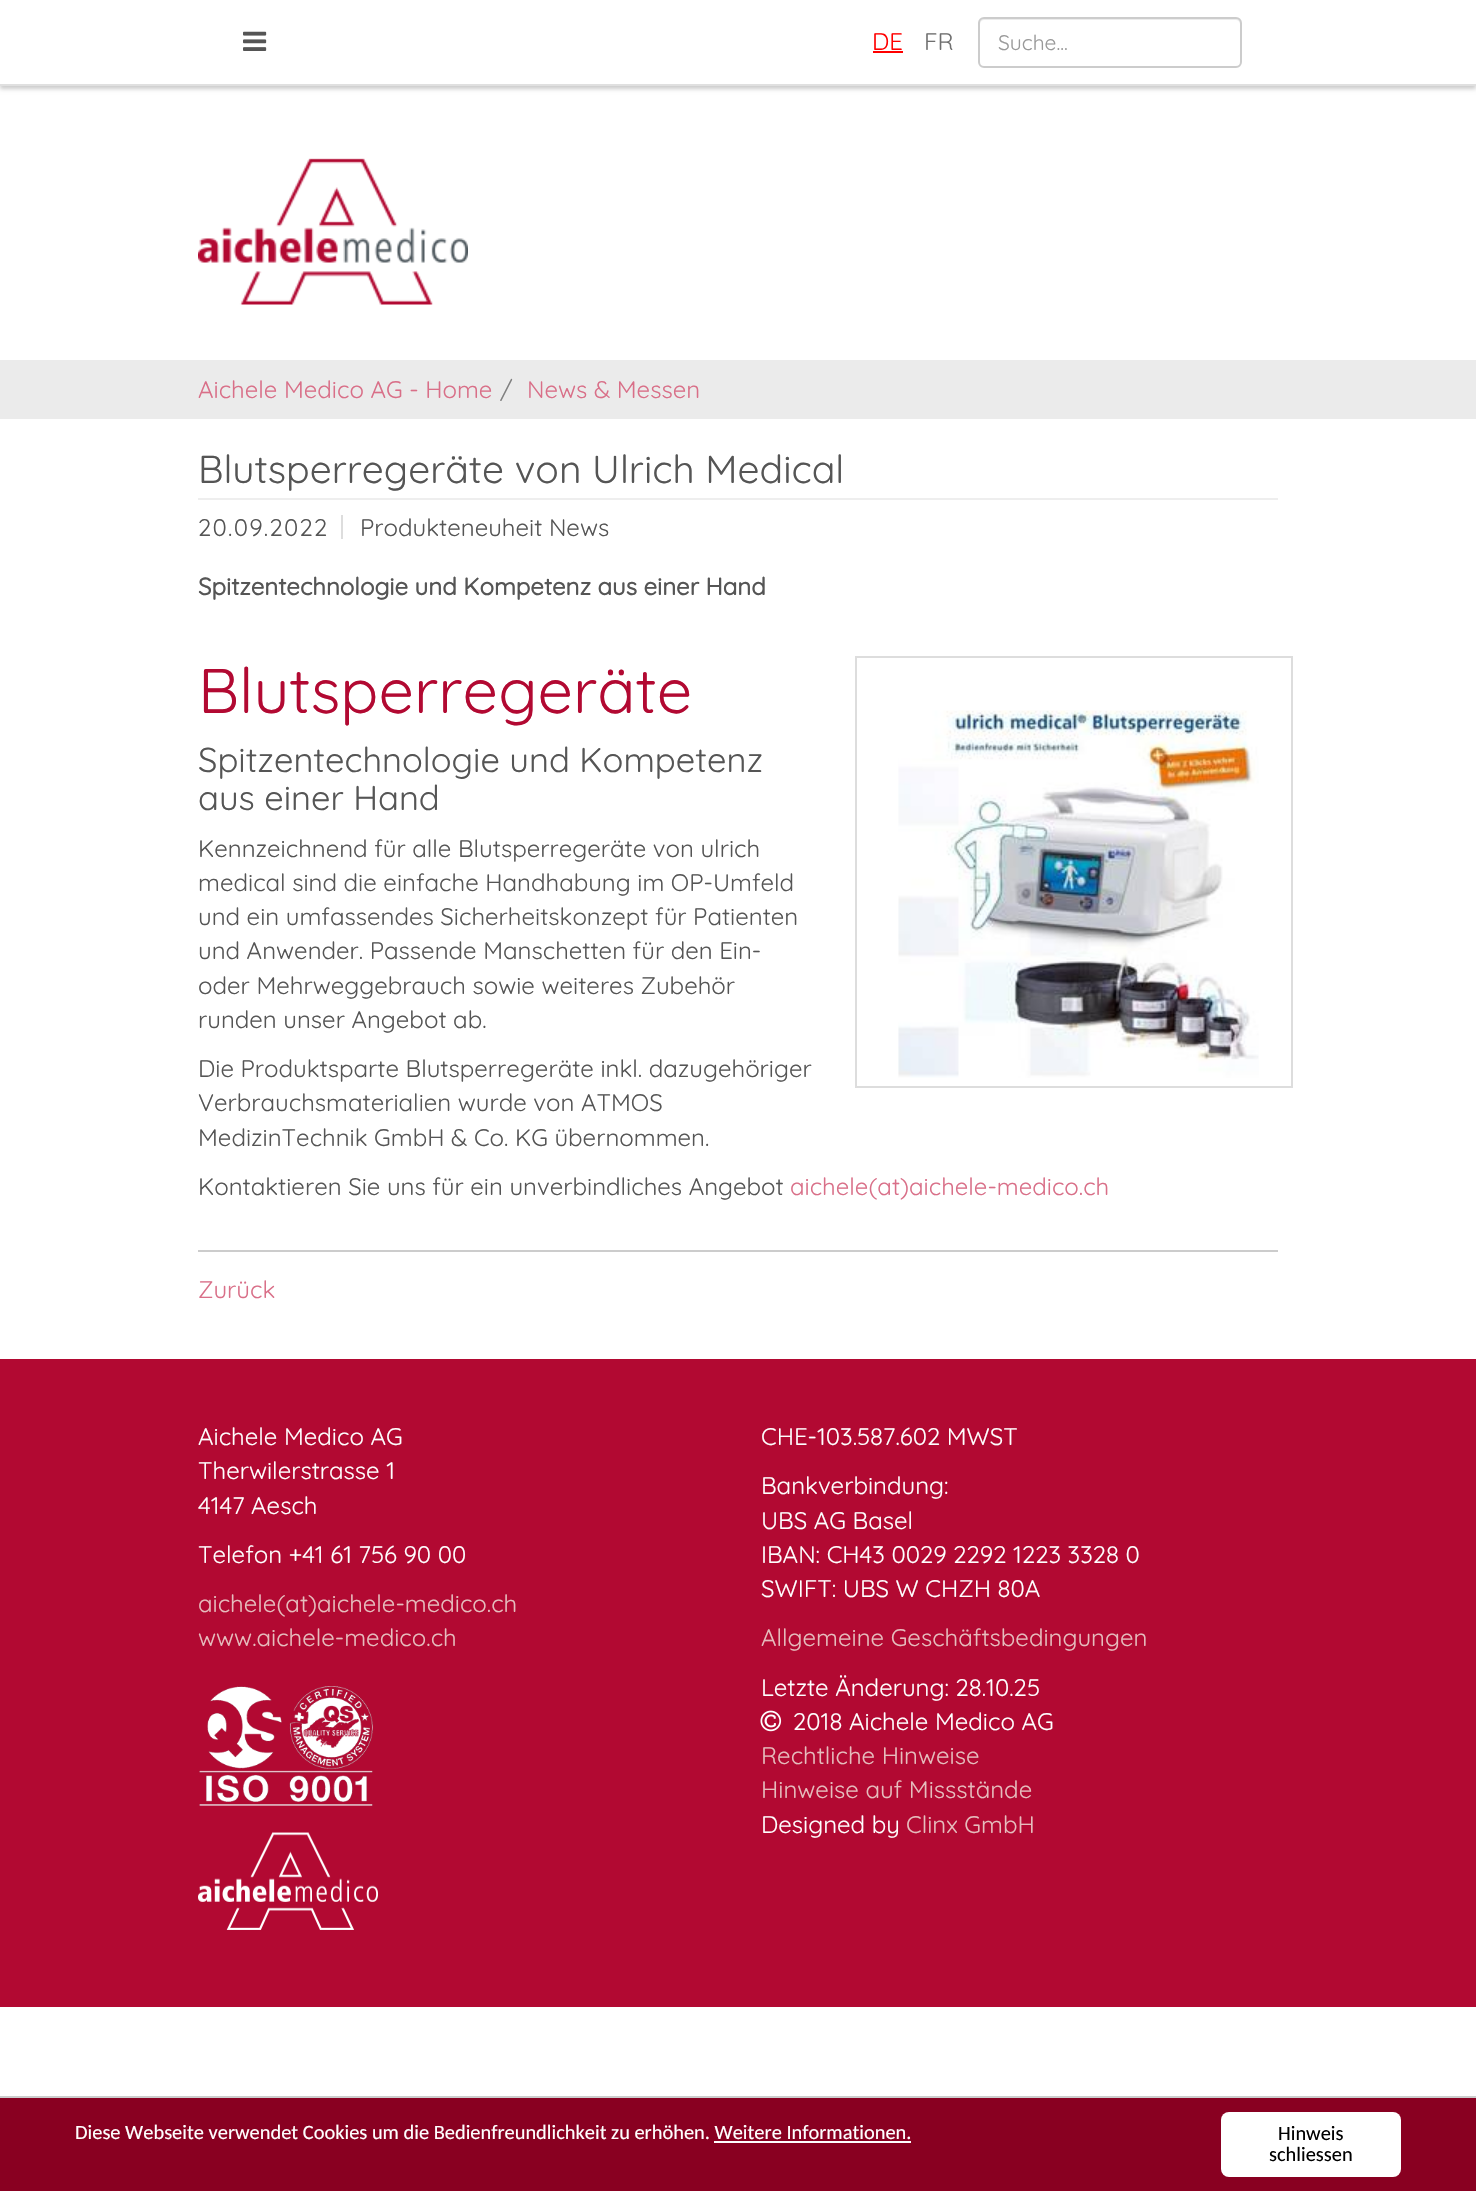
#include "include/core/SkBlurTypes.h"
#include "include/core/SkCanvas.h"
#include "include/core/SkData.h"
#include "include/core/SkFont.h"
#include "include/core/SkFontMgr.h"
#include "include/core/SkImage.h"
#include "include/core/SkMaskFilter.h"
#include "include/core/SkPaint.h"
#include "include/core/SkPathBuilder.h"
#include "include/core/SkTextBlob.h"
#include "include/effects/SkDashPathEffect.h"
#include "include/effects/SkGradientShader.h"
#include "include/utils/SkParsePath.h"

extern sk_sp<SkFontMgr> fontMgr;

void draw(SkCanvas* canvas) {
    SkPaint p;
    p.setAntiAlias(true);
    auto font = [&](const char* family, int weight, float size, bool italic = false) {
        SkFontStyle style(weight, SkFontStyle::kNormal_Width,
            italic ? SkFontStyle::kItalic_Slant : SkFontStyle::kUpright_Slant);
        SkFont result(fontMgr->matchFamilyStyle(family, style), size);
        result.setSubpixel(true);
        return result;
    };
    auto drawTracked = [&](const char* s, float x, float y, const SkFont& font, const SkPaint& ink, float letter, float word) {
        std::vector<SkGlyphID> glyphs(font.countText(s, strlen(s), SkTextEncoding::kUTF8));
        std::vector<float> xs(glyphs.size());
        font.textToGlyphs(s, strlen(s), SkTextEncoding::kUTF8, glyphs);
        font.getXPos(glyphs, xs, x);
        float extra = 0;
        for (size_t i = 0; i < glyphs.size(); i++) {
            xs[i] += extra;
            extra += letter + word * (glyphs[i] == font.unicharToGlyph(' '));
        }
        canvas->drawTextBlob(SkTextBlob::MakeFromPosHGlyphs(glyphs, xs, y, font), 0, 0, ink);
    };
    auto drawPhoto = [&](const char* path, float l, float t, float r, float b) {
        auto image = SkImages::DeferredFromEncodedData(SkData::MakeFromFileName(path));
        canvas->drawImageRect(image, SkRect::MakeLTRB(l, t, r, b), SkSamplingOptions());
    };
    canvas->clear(0xFFFFFFFF);
    p.setColor(0x33000000);
    p.setMaskFilter(SkMaskFilter::MakeBlur(kNormal_SkBlurStyle, 2));
    canvas->drawRect(SkRect::MakeLTRB(0, 3, 1476, 89), p);
    p.setMaskFilter(nullptr);
    p.setColor(0xFFFFFFFF);
    canvas->drawRect(SkRect::MakeLTRB(0, 0, 1476, 84), p);
    p.setColor(0xFFE0E0E0);
    canvas->drawRect(SkRect::MakeLTRB(0, 84, 1476, 86), p);
    drawPhoto("media/1.png", 243, 31, 267, 51);
    auto font1 = font("Quicksand", 300, 24);
    p.setColor(0xFFFF0000);
    canvas->drawString("DE", 872, 50, font1, p);
    canvas->drawRect(SkRect::MakeLTRB(873, 51, 903, 53), p);
    p.setColor(0xFF6F6F6F);
    canvas->drawString("FR", 924, 50, font1, p);
    p.setColor(0xFFECECEC);
    canvas->drawPath(SkPathBuilder().moveTo(984, 20).lineTo(1236, 20).cubicTo(1238, 20, 1240, 22, 1240, 24).lineTo(1240, 64).cubicTo(1241, 63, 1241, 62, 1241, 61).lineTo(1241, 23).cubicTo(1241, 20, 1239, 18, 1236, 18).lineTo(985, 18).cubicTo(982, 18, 980, 20, 980, 23).lineTo(980, 24).cubicTo(980, 22, 982, 20, 984, 20).close().detach(), p);
    p.setStyle(SkPaint::kStroke_Style);
    p.setStrokeWidth(2);
    p.setColor(0xFFCCCCCC);
    canvas->drawRoundRect(SkRect::MakeLTRB(979, 18, 1241, 67), 5, 5, p);
    auto font2 = font("Quicksand", 300, 21);
    p.setStyle(SkPaint::kFill_Style);
    p.setColor(0xFF999999);
    canvas->drawString("Suche...", 998, 50, font2, p);
    drawPhoto("media/2.png", 198, 158, 468, 305);
    p.setColor(0xFFEBEBEB);
    canvas->drawRect(SkRect::MakeLTRB(0, 360, 1476, 419), p);
    p.setColor(0xFFD96F88);
    canvas->drawString("Aichele Medico AG - Home", 198, 398, font1, p);
    p.setColor(0xFF808080);
    canvas->drawString("/", 500, 398, font1, p);
    p.setColor(0xFFD96F88);
    canvas->drawString("News & Messen", 527, 398, font1, p);
    auto font3 = font("Quicksand", 300, 39);
    p.setColor(0xFF555555);
    canvas->drawString("Blutsperregeräte von Ulrich Medical", 198, 483, font3, p);
    p.setColor(0xFFEEEEEE);
    canvas->drawRect(SkRect::MakeLTRB(198, 498, 1278, 500), p);
    p.setColor(0xFFDDDDDD);
    canvas->drawRect(SkRect::MakeLTRB(341, 515, 343, 539), p);
    p.setColor(0xFF555555);
    drawTracked("20.09.2022", 198, 536, font1, p, 1.25f, 0);
    canvas->drawString("Produkteneuheit News", 360, 536, font1, p);
    auto font4 = font("Quicksand", 700, 24);
    canvas->drawString("Spitzentechnologie und Kompetenz aus einer Hand", 198, 595, font4, p);
    p.setStyle(SkPaint::kStroke_Style);
    p.setColor(0xFFDDDDDD);
    canvas->drawRect(SkRect::MakeLTRB(856, 657, 1292, 1087), p);
    drawPhoto("media/3.png", 898, 710, 1259, 1078);
    auto font5 = font("Quicksand", 300, 63);
    p.setStyle(SkPaint::kFill_Style);
    p.setColor(0xFFB20932);
    canvas->drawString("Blutsperregeräte", 198, 713, font5, p);
    auto font6 = font("Quicksand", 300, 34.5f);
    p.setColor(0xFF555555);
    canvas->drawString("Spitzentechnologie und Kompetenz", 198, 772, font6, p);
    canvas->drawString("aus einer Hand", 198, 810, font6, p);
    {
        const struct { const char* s; float x, y; } items[] = {
            {"Kennzeichnend für alle Blutsperregeräte von ulrich", 198, 857},
            {"medical sind die einfache Handhabung im OP-Umfeld", 198, 891},
            {"und ein umfassendes Sicherheitskonzept für Patienten", 198, 925},
            {"und Anwender. Passende Manschetten für den Ein-", 198, 959},
            {"oder Mehrweggebrauch sowie weiteres Zubehör", 198, 994},
            {"runden unser Angebot ab.", 198, 1028},
            {"Die Produktsparte Blutsperregeräte inkl. dazugehöriger", 198, 1077},
            {"Verbrauchsmaterialien wurde von ATMOS", 198, 1111},
            {"MedizinTechnik GmbH & Co. KG übernommen.", 198, 1146},
            {"Kontaktieren Sie uns für ein unverbindliches Angebot", 198, 1195},
        };
        for (auto [s, x, y] : items) {
            canvas->drawString(s, x, y, font1, p);
        }
    }
    p.setColor(0xFFD96F88);
    canvas->drawString("aichele(at)aichele-medico.ch", 790, 1195, font1, p);
    p.setColor(0xFFCCCCCC);
    canvas->drawRect(SkRect::MakeLTRB(198, 1250, 1278, 1252), p);
    p.setColor(0xFFD96F88);
    canvas->drawString("Zurück", 198, 1298, font1, p);
    p.setColor(0xFFB20932);
    canvas->drawRect(SkRect::MakeLTRB(0, 1359, 1476, 2007), p);
    p.setColor(0xFFFFFFFF);
    {
        const struct { const char* s; float x, y; } items[] = {
            {"Aichele Medico AG", 198, 1445},
            {"Therwilerstrasse 1", 198, 1479},
            {"4147 Aesch", 198, 1514},
            {"Telefon +41 61 756 90 00", 198, 1563},
        };
        for (auto [s, x, y] : items) {
            canvas->drawString(s, x, y, font1, p);
        }
    }
    p.setColor(0xFFE6BDBD);
    canvas->drawString("aichele(at)aichele-medico.ch", 198, 1612, font1, p);
    canvas->drawString("www.aichele-medico.ch", 198, 1646, font1, p);
    p.setColor(0xFFFFFFFF);
    {
        const struct { const char* s; float x, y; } items[] = {
            {"CHE-103.587.602 MWST", 761, 1445},
            {"Bankverbindung:", 761, 1494},
            {"UBS AG Basel", 761, 1529},
            {"IBAN: CH43 0029 2292 1223 3328 0", 761, 1563},
            {"SWIFT: UBS W CHZH 80A", 761, 1597},
        };
        for (auto [s, x, y] : items) {
            canvas->drawString(s, x, y, font1, p);
        }
    }
    p.setColor(0xFFE6BDBD);
    canvas->drawString("Allgemeine Geschäftsbedingungen", 761, 1646, font1, p);
    drawPhoto("media/4.png", 199, 1686, 373, 1806);
    drawPhoto("media/5.png", 198, 1832, 378, 1930);
    p.setColor(0xFFFFFFFF);
    canvas->drawString("Letzte Änderung: 28.10.25", 761, 1696, font1, p);
    drawPhoto("media/6.png", 760, 1710, 782, 1732);
    canvas->drawString("2018 Aichele Medico AG", 793, 1730, font1, p);
    p.setColor(0xFFE6BDBD);
    canvas->drawString("Rechtliche Hinweise", 761, 1764, font1, p);
    canvas->drawString("Hinweise auf Missstände", 761, 1798, font1, p);
    p.setColor(0xFFFFFFFF);
    canvas->drawString("Designed by", 761, 1833, font1, p);
    p.setColor(0xFFE6BDBD);
    canvas->drawString("Clinx GmbH", 906, 1833, font1, p);
    p.setColor(0xFF890021);
    canvas->drawRect(SkRect::MakeLTRB(0, 2098, 1476, 2191), p);
    p.setColor(0xFFCCCCCC);
    canvas->drawRect(SkRect::MakeLTRB(0, 2096, 1476, 2098), p);
    auto font7 = font("Carlito", 400, 20.4f);
    p.setColor(0xFFFFFFFF);
    canvas->drawString("Diese Webseite verwendet Cookies um die Bedienfreundlichkeit zu erhöhen. Weitere Informationen.", 75, 2139, font7, p);
    canvas->drawRect(SkRect::MakeLTRB(714, 2141, 911, 2143), p);
    canvas->drawRoundRect(SkRect::MakeLTRB(1221, 2112, 1401, 2177), 8, 8, p);
    p.setColor(0xFF000000);
    canvas->drawString("Hinweis", 1278, 2140, font7, p);
    canvas->drawString("schliessen", 1269, 2161, font7, p);
}
